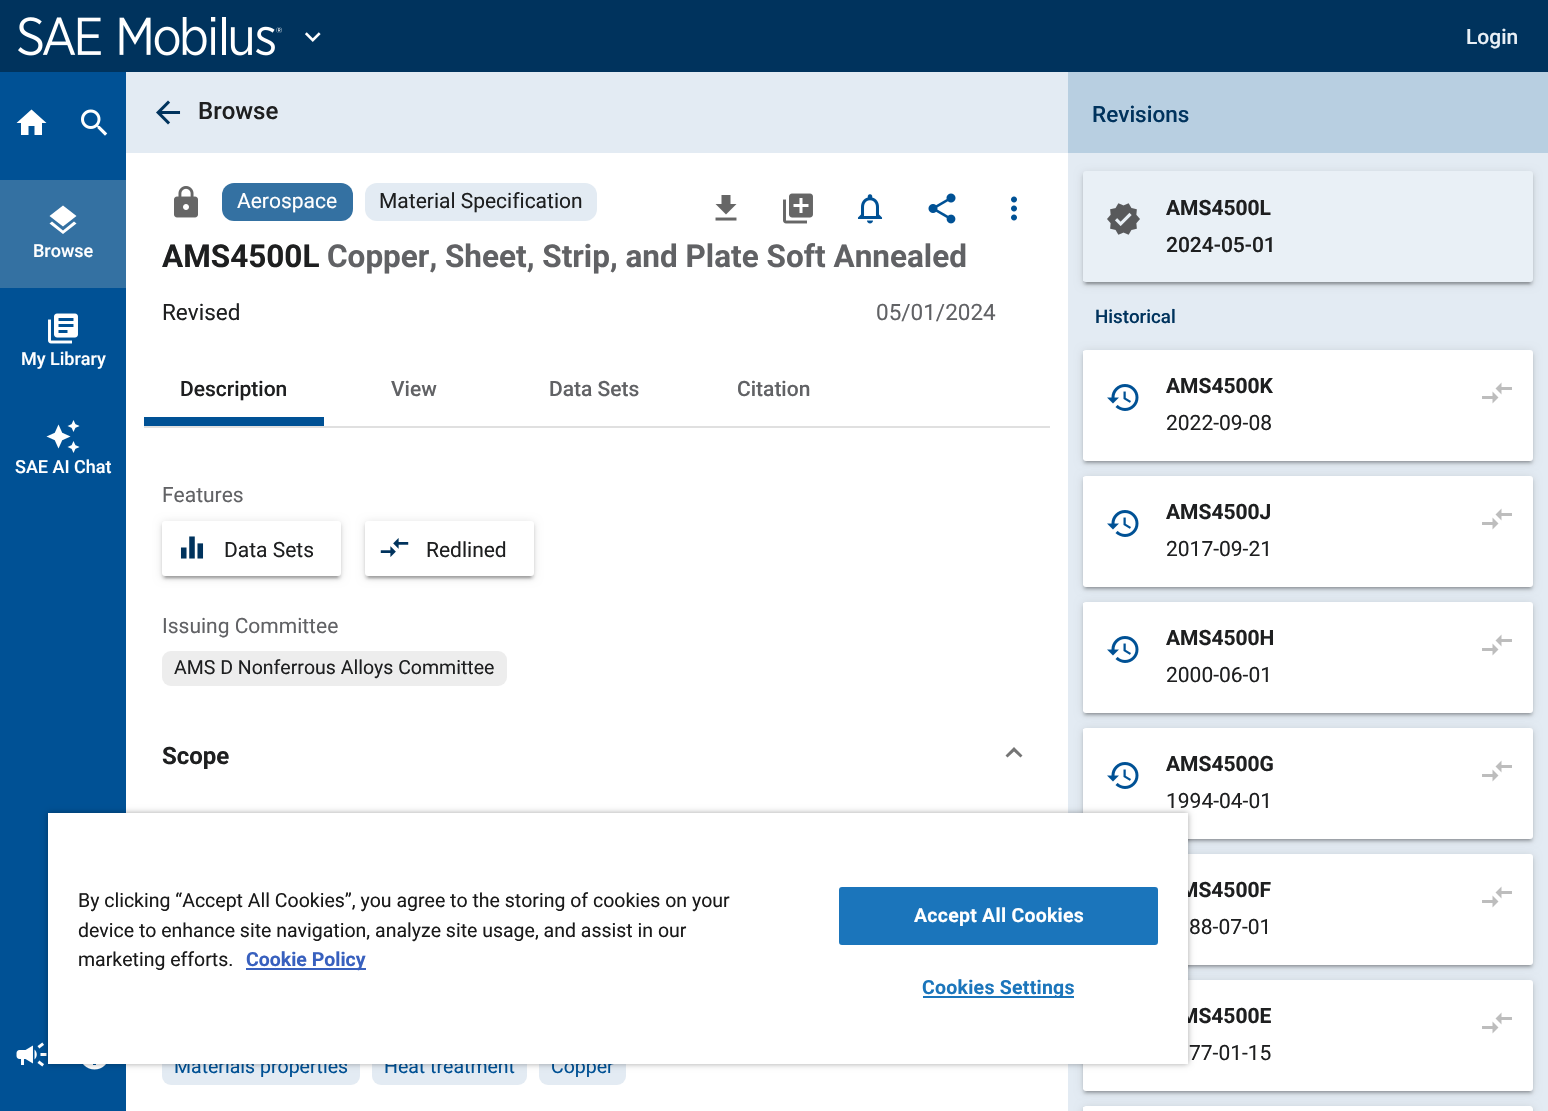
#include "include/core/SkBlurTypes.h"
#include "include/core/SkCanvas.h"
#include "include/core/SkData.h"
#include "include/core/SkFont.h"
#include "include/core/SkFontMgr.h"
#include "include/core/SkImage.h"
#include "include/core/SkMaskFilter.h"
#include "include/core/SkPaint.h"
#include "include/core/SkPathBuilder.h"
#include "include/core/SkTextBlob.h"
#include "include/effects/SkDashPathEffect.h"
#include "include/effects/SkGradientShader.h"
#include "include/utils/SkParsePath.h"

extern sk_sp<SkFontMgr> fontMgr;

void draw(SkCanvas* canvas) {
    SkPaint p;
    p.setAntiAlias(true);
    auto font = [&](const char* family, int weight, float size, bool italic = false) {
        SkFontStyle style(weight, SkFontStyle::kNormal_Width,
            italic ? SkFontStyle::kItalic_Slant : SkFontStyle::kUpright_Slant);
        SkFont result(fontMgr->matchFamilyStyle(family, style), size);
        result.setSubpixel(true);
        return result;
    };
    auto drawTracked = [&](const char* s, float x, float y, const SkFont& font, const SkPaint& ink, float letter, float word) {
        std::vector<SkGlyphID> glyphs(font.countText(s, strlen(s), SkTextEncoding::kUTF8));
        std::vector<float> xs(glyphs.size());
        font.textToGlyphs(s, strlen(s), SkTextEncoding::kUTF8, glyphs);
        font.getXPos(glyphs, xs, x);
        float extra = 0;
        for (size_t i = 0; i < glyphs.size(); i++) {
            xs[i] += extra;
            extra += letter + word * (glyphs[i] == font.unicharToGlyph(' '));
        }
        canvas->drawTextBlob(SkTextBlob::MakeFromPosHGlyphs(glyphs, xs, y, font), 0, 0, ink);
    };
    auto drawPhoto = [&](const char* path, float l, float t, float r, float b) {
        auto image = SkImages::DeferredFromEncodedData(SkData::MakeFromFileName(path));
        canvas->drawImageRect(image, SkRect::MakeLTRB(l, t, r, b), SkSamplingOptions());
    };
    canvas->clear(0xFFFFFFFF);
    p.setColor(0xFF00335D);
    canvas->drawRect(SkRect::MakeLTRB(0, 0, 1548, 72), p);
    drawPhoto("media/1.png", 18, 17, 282, 56);
    drawPhoto("media/2.png", 305, 32, 321, 42);
    auto font1 = font("Roboto", 500, 21);
    p.setColor(0xFFE9F0F6);
    canvas->drawString("Login", 1466, 44, font1, p);
    p.setColor(0xFF005195);
    canvas->drawRect(SkRect::MakeLTRB(0, 72, 126, 1111), p);
    p.setColor(0xFFFFFFFF);
    canvas->drawPath(SkPathBuilder().moveTo(28.5f, 135).lineTo(21, 135).lineTo(21, 123).lineTo(16.5f, 123).lineTo(31.5f, 109.5f).lineTo(46.5f, 123).lineTo(42, 123).lineTo(42, 135).lineTo(34.5f, 135).lineTo(34.5f, 126).lineTo(28.5f, 126).close().detach(), p);
    drawPhoto("media/3.png", 81, 109, 108, 136);
    p.setColor(0xFF3471A2);
    canvas->drawRect(SkRect::MakeLTRB(0, 180, 126, 288), p);
    p.setColor(0xFFFFFFFF);
    canvas->drawPath(SkPathBuilder().moveTo(63, 226.5f).lineTo(49.5f, 216).lineTo(63, 205.5f).lineTo(76.5f, 216).close().moveTo(63, 230.5f).lineTo(74, 221.5f).lineTo(76.5f, 223.5f).lineTo(63, 234).lineTo(49.5f, 223.5f).lineTo(52, 221.5f).close().detach(), p);
    auto font2 = font("Roboto", 500, 18);
    canvas->drawString("Browse", 33, 257, font2, p);
    drawPhoto("media/4.png", 48, 313, 78, 344);
    canvas->drawString("My Library", 21, 365, font2, p);
    drawPhoto("media/5.png", 46, 420, 80, 453);
    canvas->drawString("SAE AI Chat", 15, 473, font2, p);
    drawPhoto("media/6.png", 16, 1042, 47, 1067);
    drawPhoto("media/7.png", 83, 1064, 106, 1070);
    p.setColor(0xFFE3EBF3);
    canvas->drawRect(SkRect::MakeLTRB(126, 72, 1068, 153), p);
    drawPhoto("media/8.png", 156, 100, 181, 125);
    auto font3 = font("Roboto", 500, 24);
    p.setColor(0xFF1E1F20);
    canvas->drawString("Browse", 198, 119, font3, p);
    drawPhoto("media/9.png", 174, 186, 198, 218);
    p.setColor(0xFF3471A2);
    canvas->drawRoundRect(SkRect::MakeLTRB(222, 183, 353, 221), 12, 12, p);
    auto font4 = font("Roboto", 400, 21);
    p.setColor(0xFFFFFFFF);
    canvas->drawString("Aerospace", 237, 208, font4, p);
    p.setColor(0xFFE3EBF3);
    canvas->drawRoundRect(SkRect::MakeLTRB(365, 183, 597, 221), 12, 12, p);
    p.setColor(0xFF1E1F20);
    canvas->drawString("Material Specification", 379, 208, font4, p);
    drawPhoto("media/10.png", 715, 195, 737, 221);
    drawPhoto("media/11.png", 783, 193, 813, 224);
    drawPhoto("media/12.png", 857, 194, 883, 224);
    drawPhoto("media/13.png", 928, 193, 956, 224);
    drawPhoto("media/14.png", 1011, 196, 1017, 221);
    auto font5 = font("Roboto", 700, 31.5f);
    canvas->drawString("AMS4500L", 162, 267, font5, p);
    p.setColor(0xFF616265);
    canvas->drawString("Copper, Sheet, Strip, and Plate Soft Annealed", 327, 267, font5, p);
    auto font6 = font("Roboto", 400, 22.5f);
    p.setColor(0xFF1E1F20);
    canvas->drawString("Revised", 162, 320, font6, p);
    p.setColor(0xFF616265);
    canvas->drawString("05/01/2024", 876, 320, font6, p);
    p.setColor(0xFFE0E0E0);
    canvas->drawRect(SkRect::MakeLTRB(144, 426, 1050, 428), p);
    p.setColor(0xFF1E1F20);
    canvas->drawString("Description", 180, 396, font1, p);
    p.setColor(0xFF616265);
    {
        const struct { const char* s; float x, y; } items[] = {
            {"View", 391, 396},
            {"Data Sets", 549, 396},
            {"Citation", 737, 396},
        };
        for (auto [s, x, y] : items) {
            canvas->drawString(s, x, y, font1, p);
        }
    }
    p.setColor(0xFF005195);
    canvas->drawRect(SkRect::MakeLTRB(144, 417, 324, 426), p);
    p.setColor(0xFF616265);
    canvas->drawString("Features", 162, 502, font4, p);
    p.setColor(0x1F000000);
    p.setMaskFilter(SkMaskFilter::MakeBlur(kNormal_SkBlurStyle, 4));
    canvas->drawRoundRect(SkRect::MakeLTRB(162, 522, 341, 578), 3, 3, p);
    p.setMaskFilter(nullptr);
    p.setColor(0x24000000);
    p.setMaskFilter(SkMaskFilter::MakeBlur(kNormal_SkBlurStyle, 1.5f));
    canvas->drawRoundRect(SkRect::MakeLTRB(162, 524, 341, 579), 3, 3, p);
    p.setMaskFilter(nullptr);
    p.setColor(0x33000000);
    p.setMaskFilter(SkMaskFilter::MakeBlur(kNormal_SkBlurStyle, 1));
    canvas->drawRect(SkRect::MakeLTRB(165, 528, 338, 578), p);
    p.setMaskFilter(nullptr);
    p.setColor(0xFFFFFFFF);
    canvas->drawRoundRect(SkRect::MakeLTRB(162, 521, 341, 576), 3, 3, p);
    drawPhoto("media/15.png", 180, 536, 204, 559);
    p.setColor(0xFF1E1F20);
    canvas->drawString("Data Sets", 224, 557, font4, p);
    p.setColor(0x1F000000);
    p.setMaskFilter(SkMaskFilter::MakeBlur(kNormal_SkBlurStyle, 4));
    canvas->drawRoundRect(SkRect::MakeLTRB(365, 522, 534, 578), 3, 3, p);
    p.setMaskFilter(nullptr);
    p.setColor(0x24000000);
    p.setMaskFilter(SkMaskFilter::MakeBlur(kNormal_SkBlurStyle, 1.5f));
    canvas->drawRoundRect(SkRect::MakeLTRB(365, 524, 534, 579), 3, 3, p);
    p.setMaskFilter(nullptr);
    p.setColor(0x33000000);
    p.setMaskFilter(SkMaskFilter::MakeBlur(kNormal_SkBlurStyle, 1));
    canvas->drawRect(SkRect::MakeLTRB(368, 528, 531, 578), p);
    p.setMaskFilter(nullptr);
    p.setColor(0xFFFFFFFF);
    canvas->drawRoundRect(SkRect::MakeLTRB(365, 521, 534, 576), 3, 3, p);
    drawPhoto("media/16.png", 380, 538, 409, 557);
    p.setColor(0xFF1E1F20);
    canvas->drawString("Redlined", 426, 557, font4, p);
    p.setColor(0xFF616265);
    canvas->drawString("Issuing Committee", 162, 633, font4, p);
    p.setColor(0xFFEDEDED);
    canvas->drawRoundRect(SkRect::MakeLTRB(162, 651, 507, 686), 9, 9, p);
    auto font7 = font("Roboto", 400, 19.5f);
    p.setColor(0xFF1E1F20);
    canvas->drawString("AMS D Nonferrous Alloys Committee", 174, 674, font7, p);
    auto font8 = font("Roboto", 700, 24);
    canvas->drawString("Scope", 162, 764, font8, p);
    p.setColor(0xFF757575);
    canvas->drawPath(SkPathBuilder().moveTo(1005.5f, 755.5f).lineTo(1014, 747).lineTo(1014, 751.5f).lineTo(1007.5f, 757.5f).close().moveTo(1014, 747).lineTo(1022.5f, 755.5f).lineTo(1020.5f, 757.5f).lineTo(1014, 751.5f).close().detach(), p);
    p.setColor(0xFFE3EBF3);
    canvas->drawRoundRect(SkRect::MakeLTRB(162, 1050, 360, 1085), 9, 9, p);
    p.setColor(0xFF005195);
    canvas->drawString("Materials properties", 174, 1073, font7, p);
    p.setColor(0xFFE3EBF3);
    canvas->drawRoundRect(SkRect::MakeLTRB(372, 1050, 527, 1085), 9, 9, p);
    p.setColor(0xFF005195);
    canvas->drawString("Heat treatment", 384, 1073, font7, p);
    p.setColor(0xFFE3EBF3);
    canvas->drawRoundRect(SkRect::MakeLTRB(539, 1050, 626, 1085), 9, 9, p);
    p.setColor(0xFF005195);
    canvas->drawString("Copper", 551, 1073, font7, p);
    p.setColor(0xFFE3EBF3);
    canvas->drawRect(SkRect::MakeLTRB(1068, 153, 1548, 1111), p);
    p.setColor(0xFFB8CFE1);
    canvas->drawRect(SkRect::MakeLTRB(1068, 72, 1548, 153), p);
    auto font9 = font("Roboto", 500, 22.5f);
    p.setColor(0xFF00335D);
    canvas->drawString("Revisions", 1092, 122, font9, p);
    p.setColor(0x1F000000);
    p.setMaskFilter(SkMaskFilter::MakeBlur(kNormal_SkBlurStyle, 4));
    canvas->drawRoundRect(SkRect::MakeLTRB(1083, 173, 1533, 284), 3, 3, p);
    p.setMaskFilter(nullptr);
    p.setColor(0x24000000);
    p.setMaskFilter(SkMaskFilter::MakeBlur(kNormal_SkBlurStyle, 1.5f));
    canvas->drawRoundRect(SkRect::MakeLTRB(1083, 174, 1533, 285), 3, 3, p);
    p.setMaskFilter(nullptr);
    p.setColor(0x33000000);
    p.setMaskFilter(SkMaskFilter::MakeBlur(kNormal_SkBlurStyle, 1));
    canvas->drawRect(SkRect::MakeLTRB(1086, 179, 1530, 284), p);
    p.setMaskFilter(nullptr);
    p.setColor(0xFFE9F0F6);
    canvas->drawRoundRect(SkRect::MakeLTRB(1083, 171, 1533, 282), 3, 3, p);
    canvas->drawRect(SkRect::MakeLTRB(1083, 279, 1084, 281), p);
    drawPhoto("media/17.png", 1107, 203, 1140, 235);
    auto font10 = font("Roboto", 700, 21);
    p.setColor(0xFF1E1F20);
    canvas->drawString("AMS4500L", 1166, 215, font10, p);
    canvas->drawString("2024-05-01", 1166, 252, font1, p);
    auto font11 = font("Roboto", 500, 18.75f);
    p.setColor(0xFF00335D);
    canvas->drawString("Historical", 1095, 323, font11, p);
    p.setColor(0x1F000000);
    p.setMaskFilter(SkMaskFilter::MakeBlur(kNormal_SkBlurStyle, 4));
    canvas->drawRoundRect(SkRect::MakeLTRB(1083, 351, 1533, 462), 3, 3, p);
    p.setMaskFilter(nullptr);
    p.setColor(0x24000000);
    p.setMaskFilter(SkMaskFilter::MakeBlur(kNormal_SkBlurStyle, 1.5f));
    canvas->drawRoundRect(SkRect::MakeLTRB(1083, 353, 1533, 464), 3, 3, p);
    p.setMaskFilter(nullptr);
    p.setColor(0x33000000);
    p.setMaskFilter(SkMaskFilter::MakeBlur(kNormal_SkBlurStyle, 1));
    canvas->drawRect(SkRect::MakeLTRB(1086, 357, 1530, 462), p);
    p.setMaskFilter(nullptr);
    p.setColor(0xFFFFFFFF);
    canvas->drawRoundRect(SkRect::MakeLTRB(1083, 350, 1533, 461), 3, 3, p);
    canvas->drawRect(SkRect::MakeLTRB(1083, 351, 1084, 459), p);
    drawPhoto("media/18.png", 1107, 384, 1139, 411);
    p.setColor(0xFF1E1F20);
    canvas->drawString("AMS4500K", 1166, 393, font10, p);
    canvas->drawString("2022-09-08", 1166, 430, font4, p);
    drawPhoto("media/19.png", 1482, 382, 1512, 404);
    p.setColor(0x1F000000);
    p.setMaskFilter(SkMaskFilter::MakeBlur(kNormal_SkBlurStyle, 4));
    canvas->drawRoundRect(SkRect::MakeLTRB(1083, 477, 1533, 588), 3, 3, p);
    p.setMaskFilter(nullptr);
    p.setColor(0x24000000);
    p.setMaskFilter(SkMaskFilter::MakeBlur(kNormal_SkBlurStyle, 1.5f));
    canvas->drawRoundRect(SkRect::MakeLTRB(1083, 479, 1533, 590), 3, 3, p);
    p.setMaskFilter(nullptr);
    p.setColor(0x33000000);
    p.setMaskFilter(SkMaskFilter::MakeBlur(kNormal_SkBlurStyle, 1));
    canvas->drawRect(SkRect::MakeLTRB(1086, 483, 1530, 588), p);
    p.setMaskFilter(nullptr);
    p.setColor(0xFFFFFFFF);
    canvas->drawRoundRect(SkRect::MakeLTRB(1083, 476, 1533, 587), 3, 3, p);
    canvas->drawRect(SkRect::MakeLTRB(1083, 477, 1084, 585), p);
    drawPhoto("media/18.png", 1107, 510, 1139, 537);
    p.setColor(0xFF1E1F20);
    canvas->drawString("AMS4500J", 1166, 519, font10, p);
    canvas->drawString("2017-09-21", 1166, 556, font4, p);
    drawPhoto("media/19.png", 1482, 508, 1512, 530);
    p.setColor(0x1F000000);
    p.setMaskFilter(SkMaskFilter::MakeBlur(kNormal_SkBlurStyle, 4));
    canvas->drawRoundRect(SkRect::MakeLTRB(1083, 603, 1533, 714), 3, 3, p);
    p.setMaskFilter(nullptr);
    p.setColor(0x24000000);
    p.setMaskFilter(SkMaskFilter::MakeBlur(kNormal_SkBlurStyle, 1.5f));
    canvas->drawRoundRect(SkRect::MakeLTRB(1083, 605, 1533, 716), 3, 3, p);
    p.setMaskFilter(nullptr);
    p.setColor(0x33000000);
    p.setMaskFilter(SkMaskFilter::MakeBlur(kNormal_SkBlurStyle, 1));
    canvas->drawRect(SkRect::MakeLTRB(1086, 609, 1530, 714), p);
    p.setMaskFilter(nullptr);
    p.setColor(0xFFFFFFFF);
    canvas->drawRoundRect(SkRect::MakeLTRB(1083, 602, 1533, 713), 3, 3, p);
    canvas->drawRect(SkRect::MakeLTRB(1083, 603, 1084, 711), p);
    drawPhoto("media/18.png", 1107, 636, 1139, 663);
    p.setColor(0xFF1E1F20);
    canvas->drawString("AMS4500H", 1166, 645, font10, p);
    canvas->drawString("2000-06-01", 1166, 682, font4, p);
    drawPhoto("media/19.png", 1482, 634, 1512, 656);
    p.setColor(0x1F000000);
    p.setMaskFilter(SkMaskFilter::MakeBlur(kNormal_SkBlurStyle, 4));
    canvas->drawRoundRect(SkRect::MakeLTRB(1083, 729, 1533, 840), 3, 3, p);
    p.setMaskFilter(nullptr);
    p.setColor(0x24000000);
    p.setMaskFilter(SkMaskFilter::MakeBlur(kNormal_SkBlurStyle, 1.5f));
    canvas->drawRoundRect(SkRect::MakeLTRB(1083, 731, 1533, 842), 3, 3, p);
    p.setMaskFilter(nullptr);
    p.setColor(0x33000000);
    p.setMaskFilter(SkMaskFilter::MakeBlur(kNormal_SkBlurStyle, 1));
    canvas->drawRect(SkRect::MakeLTRB(1086, 735, 1530, 840), p);
    p.setMaskFilter(nullptr);
    p.setColor(0xFFFFFFFF);
    canvas->drawRoundRect(SkRect::MakeLTRB(1083, 728, 1533, 839), 3, 3, p);
    canvas->drawRect(SkRect::MakeLTRB(1083, 729, 1084, 731), p);
    drawPhoto("media/18.png", 1107, 762, 1139, 789);
    p.setColor(0xFF1E1F20);
    canvas->drawString("AMS4500G", 1166, 771, font10, p);
    canvas->drawString("1994-04-01", 1166, 808, font4, p);
    drawPhoto("media/19.png", 1482, 760, 1512, 782);
    p.setColor(0x1F000000);
    p.setMaskFilter(SkMaskFilter::MakeBlur(kNormal_SkBlurStyle, 4));
    canvas->drawRoundRect(SkRect::MakeLTRB(1083, 855, 1533, 966), 3, 3, p);
    p.setMaskFilter(nullptr);
    p.setColor(0x24000000);
    p.setMaskFilter(SkMaskFilter::MakeBlur(kNormal_SkBlurStyle, 1.5f));
    canvas->drawRoundRect(SkRect::MakeLTRB(1083, 857, 1533, 968), 3, 3, p);
    p.setMaskFilter(nullptr);
    p.setColor(0x33000000);
    p.setMaskFilter(SkMaskFilter::MakeBlur(kNormal_SkBlurStyle, 1));
    canvas->drawRect(SkRect::MakeLTRB(1086, 861, 1530, 966), p);
    p.setMaskFilter(nullptr);
    p.setColor(0xFFFFFFFF);
    canvas->drawRoundRect(SkRect::MakeLTRB(1083, 854, 1533, 965), 3, 3, p);
    p.setColor(0xFF1E1F20);
    canvas->drawString("MS4500F", 1180, 897, font10, p);
    canvas->drawString("88-07-01", 1189, 934, font4, p);
    drawPhoto("media/19.png", 1482, 886, 1512, 908);
    p.setColor(0x1F000000);
    p.setMaskFilter(SkMaskFilter::MakeBlur(kNormal_SkBlurStyle, 4));
    canvas->drawRoundRect(SkRect::MakeLTRB(1083, 981, 1533, 1092), 3, 3, p);
    p.setMaskFilter(nullptr);
    p.setColor(0x24000000);
    p.setMaskFilter(SkMaskFilter::MakeBlur(kNormal_SkBlurStyle, 1.5f));
    canvas->drawRoundRect(SkRect::MakeLTRB(1083, 983, 1533, 1094), 3, 3, p);
    p.setMaskFilter(nullptr);
    p.setColor(0x33000000);
    p.setMaskFilter(SkMaskFilter::MakeBlur(kNormal_SkBlurStyle, 1));
    canvas->drawRect(SkRect::MakeLTRB(1086, 987, 1530, 1092), p);
    p.setMaskFilter(nullptr);
    p.setColor(0xFFFFFFFF);
    canvas->drawRoundRect(SkRect::MakeLTRB(1083, 980, 1533, 1091), 3, 3, p);
    canvas->drawRect(SkRect::MakeLTRB(1083, 1088, 1084, 1089), p);
    p.setColor(0xFF1E1F20);
    canvas->drawString("MS4500E", 1180, 1023, font10, p);
    canvas->drawString("77-01-15", 1189, 1060, font4, p);
    drawPhoto("media/19.png", 1482, 1012, 1512, 1034);
    p.setColor(0x1F000000);
    p.setMaskFilter(SkMaskFilter::MakeBlur(kNormal_SkBlurStyle, 4));
    canvas->drawRoundRect(SkRect::MakeLTRB(1083, 1107, 1533, 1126), 3, 3, p);
    p.setMaskFilter(nullptr);
    p.setColor(0x24000000);
    p.setMaskFilter(SkMaskFilter::MakeBlur(kNormal_SkBlurStyle, 1.5f));
    canvas->drawRoundRect(SkRect::MakeLTRB(1083, 1109, 1533, 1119), 3, 3, p);
    p.setMaskFilter(nullptr);
    p.setColor(0xFFFFFFFF);
    canvas->drawPath(SkPathBuilder().moveTo(1086, 1106).lineTo(1530, 1106).cubicTo(1531.5f, 1106, 1533, 1107.5f, 1533, 1109).lineTo(1533, 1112).lineTo(1083, 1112).lineTo(1083, 1109).cubicTo(1083, 1107.5f, 1084.5f, 1106, 1086, 1106).close().detach(), p);
    canvas->drawRect(SkRect::MakeLTRB(1083, 1107, 1091, 1109), p);
    p.setColor(0x59000000);
    p.setMaskFilter(SkMaskFilter::MakeBlur(kNormal_SkBlurStyle, 3));
    canvas->drawRect(SkRect::MakeLTRB(48, 813, 1188, 1064), p);
    p.setMaskFilter(nullptr);
    p.setColor(0xFFFFFFFF);
    canvas->drawRect(SkRect::MakeLTRB(48, 813, 1188, 1064), p);
    p.setColor(0xFF1A1A1A);
    {
        const struct { const char* s; float x, y; } items[] = {
            {"By clicking “Accept All Cookies”, you agree to the storing of cookies on your", 78, 907},
            {"device to enhance site navigation, analyze site usage, and assist in our", 78, 937},
            {"marketing efforts.", 78, 966},
        };
        for (auto [s, x, y] : items) {
            canvas->drawString(s, x, y, font7, p);
        }
    }
    p.setColor(0xFF3860BE);
    canvas->drawRect(SkRect::MakeLTRB(246, 968, 366, 970), p);
    auto font12 = font("Roboto", 700, 19.5f);
    canvas->drawString("Cookie Policy", 246, 966, font12, p);
    p.setColor(0xFF1B75BB);
    canvas->drawRoundRect(SkRect::MakeLTRB(840, 888, 1157, 944), 2, 2, p);
    p.setStyle(SkPaint::kStroke_Style);
    p.setStrokeWidth(2);
    canvas->drawRoundRect(SkRect::MakeLTRB(840, 888, 1157, 944), 2, 2, p);
    p.setStyle(SkPaint::kFill_Style);
    p.setColor(0xFFFFFFFF);
    drawTracked("Accept All Cookies", 914, 922, font12, p, 0.25f, 0);
    p.setColor(0xFF1B75BB);
    canvas->drawRect(SkRect::MakeLTRB(923, 996, 1074, 998), p);
    drawTracked("Cookies Settings", 922, 994, font12, p, 0.25f, 0);
}
